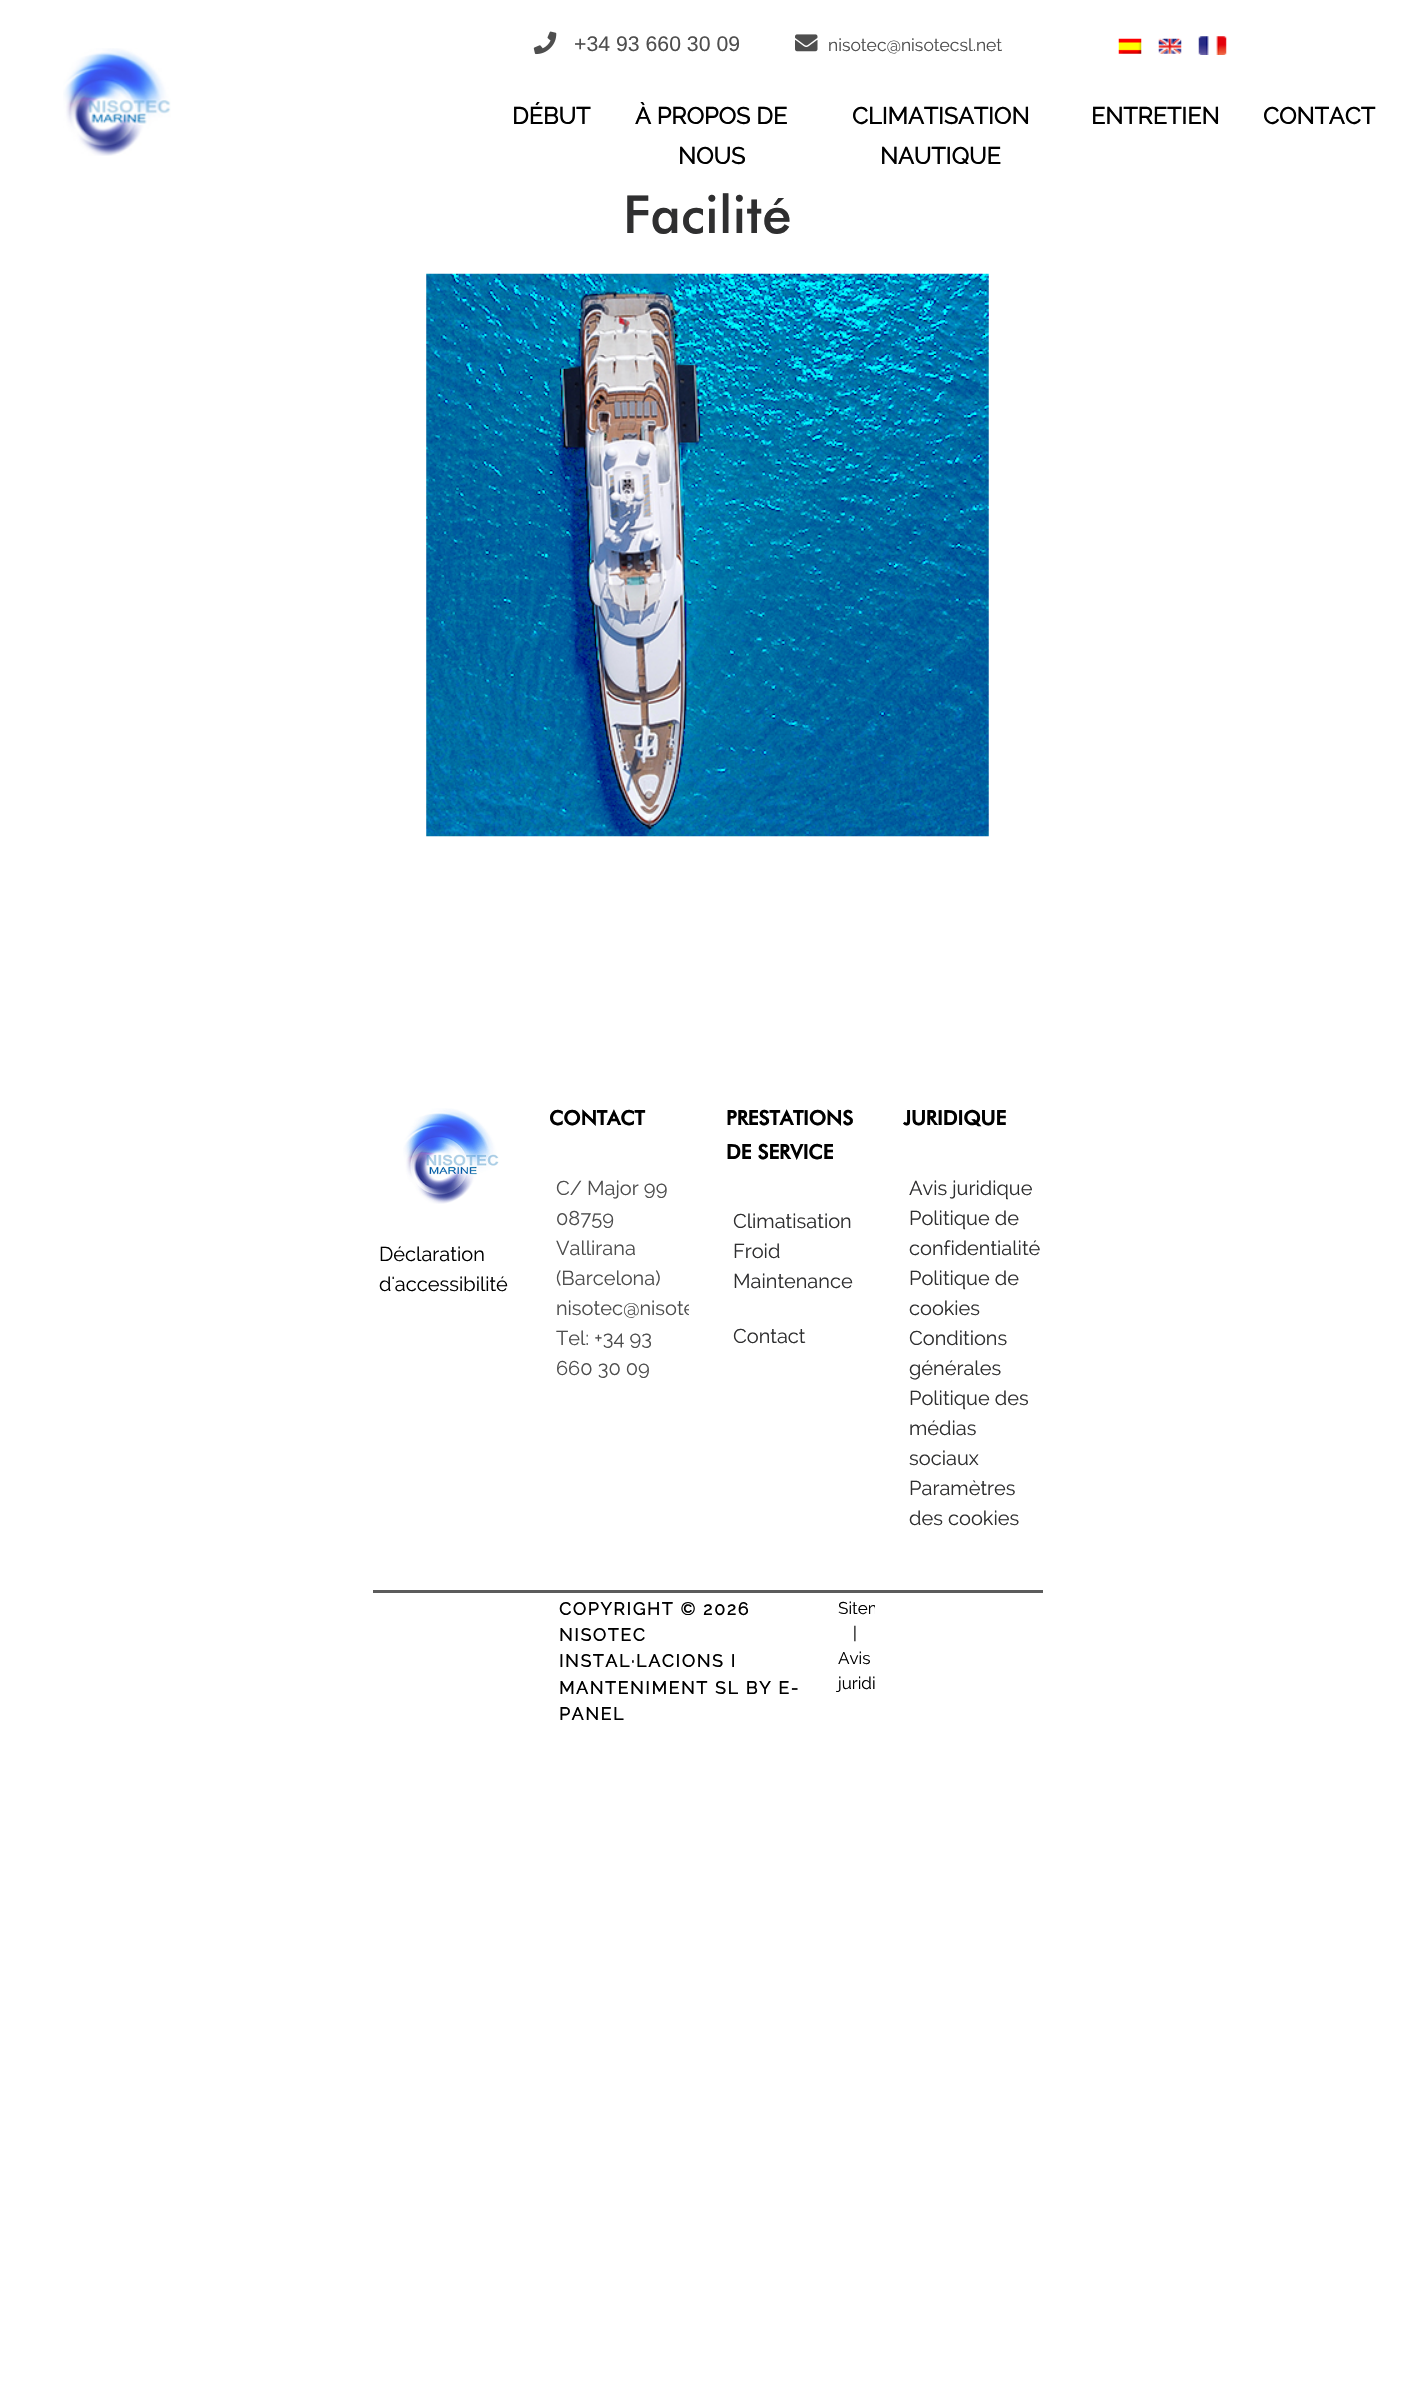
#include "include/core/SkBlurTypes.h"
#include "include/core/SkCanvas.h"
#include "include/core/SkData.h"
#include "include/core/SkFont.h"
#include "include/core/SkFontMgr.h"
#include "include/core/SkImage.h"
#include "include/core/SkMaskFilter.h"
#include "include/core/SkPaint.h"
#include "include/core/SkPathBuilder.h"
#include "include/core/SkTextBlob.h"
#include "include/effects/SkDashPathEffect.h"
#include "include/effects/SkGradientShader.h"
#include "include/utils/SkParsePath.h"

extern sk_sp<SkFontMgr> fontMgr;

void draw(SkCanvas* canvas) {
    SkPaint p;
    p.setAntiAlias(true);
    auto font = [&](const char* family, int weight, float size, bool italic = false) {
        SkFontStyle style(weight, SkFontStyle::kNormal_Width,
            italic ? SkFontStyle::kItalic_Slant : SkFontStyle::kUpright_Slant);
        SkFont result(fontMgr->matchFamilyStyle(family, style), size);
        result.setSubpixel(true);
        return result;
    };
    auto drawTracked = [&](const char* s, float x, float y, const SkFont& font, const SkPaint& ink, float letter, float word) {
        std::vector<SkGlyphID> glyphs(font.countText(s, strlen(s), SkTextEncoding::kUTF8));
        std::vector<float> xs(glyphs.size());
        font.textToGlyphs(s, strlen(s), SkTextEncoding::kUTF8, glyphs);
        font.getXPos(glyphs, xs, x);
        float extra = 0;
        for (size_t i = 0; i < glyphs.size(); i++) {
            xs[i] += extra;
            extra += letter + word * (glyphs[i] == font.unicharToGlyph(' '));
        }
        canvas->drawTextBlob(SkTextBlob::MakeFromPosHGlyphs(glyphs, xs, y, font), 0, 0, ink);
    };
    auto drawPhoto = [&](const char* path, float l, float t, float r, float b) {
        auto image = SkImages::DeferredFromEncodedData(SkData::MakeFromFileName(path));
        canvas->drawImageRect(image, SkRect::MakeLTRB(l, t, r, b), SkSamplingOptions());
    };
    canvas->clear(0xFFFFFFFF);
    drawPhoto("media/1.png", 533, 31, 557, 55);
    auto font1 = font("Liberation Sans", 400, 21.25f);
    p.setColor(0xFF4E4E4E);
    canvas->drawString("+34 93 660 30 09", 574, 51, font1, p);
    drawPhoto("media/2.png", 795, 34, 818, 52);
    auto font2 = font("Raleway", 400, 17.5f);
    canvas->drawString("nisotec@nisotecsl.net", 828, 51, font2, p);
    drawPhoto("media/3.png", 1118, 38, 1142, 54);
    drawPhoto("media/4.png", 1158, 38, 1182, 54);
    drawPhoto("media/5.png", 1198, 36, 1227, 55);
    drawPhoto("media/6.png", 63, 48, 171, 156);
    auto font3 = font("Raleway", 700, 23.25f);
    p.setColor(0xFF000000);
    {
        const struct { const char* s; float x, y; } items[] = {
            {"DÉBUT", 512, 124},
            {"À PROPOS DE", 635, 124},
            {"NOUS", 678, 164},
            {"CLIMATISATION", 852, 124},
            {"NAUTIQUE", 880, 164},
            {"ENTRETIEN", 1091, 124},
            {"CONTACT", 1263, 124},
        };
        for (auto [s, x, y] : items) {
            canvas->drawString(s, x, y, font3, p);
        }
    }
    auto font4 = font("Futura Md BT", 500, 52.5f);
    p.setColor(0xFF2F2F30);
    canvas->drawString("Facilité", 623, 233, font4, p);
    drawPhoto("media/7.png", 426, 273, 989, 837);
    drawPhoto("media/8.png", 403, 1108, 499, 1204);
    auto font5 = font("Raleway", 400, 20);
    p.setColor(0xFF000000);
    canvas->drawString("Déclaration", 379, 1261, font5, p);
    canvas->drawString("d'accessibilité", 379, 1291, font5, p);
    auto font6 = font("Futura Md BT", 700, 20);
    canvas->drawString("CONTACT", 549, 1125, font6, p);
    p.setColor(0xFF4E4E4E);
    {
        const struct { const char* s; float x, y; } items[] = {
            {"C/ Major 99", 556, 1195},
            {"08759", 556, 1225},
            {"Vallirana", 556, 1255},
            {"(Barcelona)", 556, 1285},
        };
        for (auto [s, x, y] : items) {
            canvas->drawString(s, x, y, font5, p);
        }
    }
    canvas->save();
    canvas->clipRect(SkRect::MakeLTRB(550, 1174, 689, 1409));
    canvas->drawString("nisotec@nisote", 556, 1315, font5, p);
    canvas->restore();
    canvas->drawString("Tel: +34 93", 556, 1345, font5, p);
    canvas->drawString("660 30 09", 556, 1375, font5, p);
    p.setColor(0xFF000000);
    canvas->drawString("PRESTATIONS", 726, 1125, font6, p);
    canvas->drawString("DE SERVICE", 726, 1159, font6, p);
    p.setColor(0xFF2F2F30);
    {
        const struct { const char* s; float x, y; } items[] = {
            {"Climatisation", 733, 1228},
            {"Froid", 733, 1258},
            {"Maintenance", 733, 1288},
            {"Contact", 733, 1343},
        };
        for (auto [s, x, y] : items) {
            canvas->drawString(s, x, y, font5, p);
        }
    }
    p.setColor(0xFF000000);
    canvas->drawString("JURIDIQUE", 903, 1125, font6, p);
    p.setColor(0xFF2F2F30);
    {
        const struct { const char* s; float x, y; } items[] = {
            {"Avis juridique", 909, 1195},
            {"Politique de", 909, 1225},
            {"confidentialité", 909, 1255},
            {"Politique de", 909, 1285},
            {"cookies", 909, 1315},
            {"Conditions", 909, 1345},
            {"générales", 909, 1375},
            {"Politique des", 909, 1405},
            {"médias", 909, 1435},
            {"sociaux", 909, 1465},
            {"Paramètres", 909, 1495},
            {"des cookies", 909, 1525},
        };
        for (auto [s, x, y] : items) {
            canvas->drawString(s, x, y, font5, p);
        }
    }
    p.setColor(0xFF5C5C5C);
    canvas->drawRect(SkRect::MakeLTRB(373, 1590, 1043, 1593), p);
    auto font7 = font("Raleway", 700, 17.5f);
    p.setColor(0xFF000000);
    {
        const struct { const char* s; float x, y; } items[] = {
            {"COPYRIGHT © 2026", 559, 1615},
            {"NISOTEC", 559, 1641},
            {"INSTAL·LACIONS I", 559, 1667},
            {"MANTENIMENT SL BY E-", 559, 1694},
            {"PANEL", 559, 1720},
        };
        for (auto [s, x, y] : items) {
            drawTracked(s, x, y, font7, p, 1.75f, 0);
        }
    }
    canvas->save();
    canvas->clipRect(SkRect::MakeLTRB(540, 1578, 875, 1746));
    auto font8 = font("Raleway", 400, 17);
    canvas->drawString("Sitem", 838, 1614, font8, p);
    canvas->restore();
    {
        const struct { const char* s; float x, y; } items[] = {
            {"|", 853, 1639},
            {"Avis", 838, 1664},
            {"juridi", 838, 1689},
        };
        for (auto [s, x, y] : items) {
            canvas->drawString(s, x, y, font8, p);
        }
    }
}
